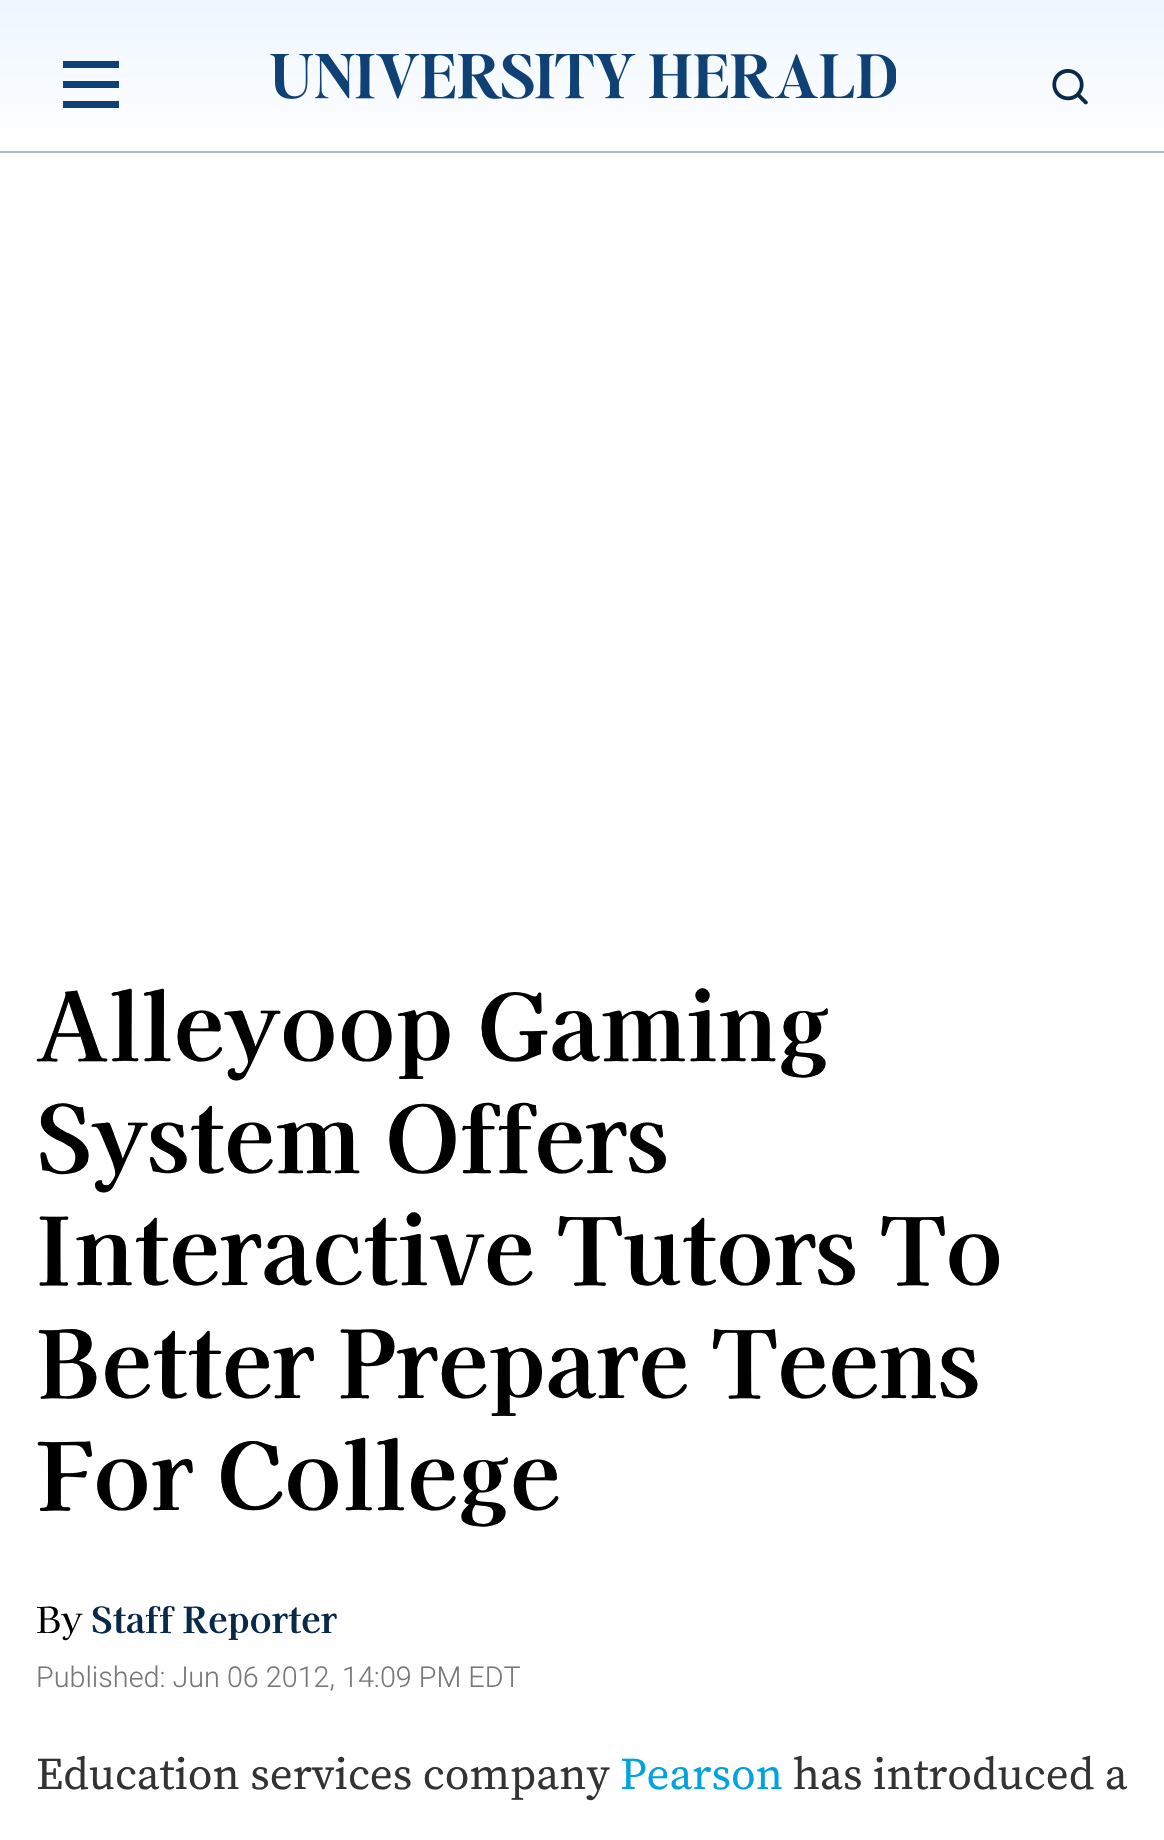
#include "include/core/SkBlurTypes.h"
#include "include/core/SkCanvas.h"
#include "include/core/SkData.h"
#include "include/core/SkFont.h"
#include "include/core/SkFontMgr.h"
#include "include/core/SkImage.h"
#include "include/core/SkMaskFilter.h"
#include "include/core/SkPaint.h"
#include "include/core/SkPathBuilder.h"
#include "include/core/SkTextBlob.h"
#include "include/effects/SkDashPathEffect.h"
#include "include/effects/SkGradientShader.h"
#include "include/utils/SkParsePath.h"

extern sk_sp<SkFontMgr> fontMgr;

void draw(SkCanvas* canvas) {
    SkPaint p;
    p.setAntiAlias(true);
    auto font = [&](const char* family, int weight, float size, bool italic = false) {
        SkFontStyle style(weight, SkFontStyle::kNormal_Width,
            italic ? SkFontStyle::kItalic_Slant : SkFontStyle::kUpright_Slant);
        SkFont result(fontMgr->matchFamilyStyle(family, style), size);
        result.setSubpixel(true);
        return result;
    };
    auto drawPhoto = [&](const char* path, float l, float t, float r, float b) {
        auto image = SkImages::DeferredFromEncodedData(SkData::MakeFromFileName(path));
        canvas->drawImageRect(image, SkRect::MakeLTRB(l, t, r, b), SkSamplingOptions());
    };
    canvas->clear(0xFFFFFFFF);
    p.setColor(0xFFAFBAC5);
    canvas->drawRect(SkRect::MakeLTRB(0, 151, 1164, 153), p);
    {
        const SkColor colors[] = {0xFFEDF6FF, 0xFFFFFFFF};
        const float stops[] = {0, 1};
        const SkPoint ends[] = {{583, 0}, {583, 151}};
        p.setShader(SkGradientShader::MakeLinear(ends, colors, stops, 2, SkTileMode::kClamp));
        p.setAlpha(255);
    }
    canvas->drawRect(SkRect::MakeLTRB(0, 0, 1164, 130), p);
    drawPhoto("media/1.png", 270, 54, 896, 99);
    p.setShader(nullptr);
    {
        const struct { float l, t, r, b; SkColor color; } items[] = {
            {63, 61, 119, 68, 0xFF0F4176},
            {63, 81, 119, 88, 0xFF0F4176},
            {63, 101, 119, 108, 0xFF0F4176},
        };
        for (auto [l, t, r, b, color] : items) {
            p.setColor(color);
            canvas->drawRect(SkRect::MakeLTRB(l, t, r, b), p);
        }
    }
    drawPhoto("media/2.png", 1052, 69, 1088, 105);
    auto font1 = font("Kaisei Decol", 700, 93.6f);
    p.setColor(0xFF000000);
    {
        const struct { const char* s; float x, y; } items[] = {
            {"Alleyoop Gaming", 36, 1061},
            {"System Offers", 36, 1173},
            {"Interactive Tutors To", 36, 1285},
            {"Better Prepare Teens", 36, 1398},
            {"For College", 36, 1510},
        };
        for (auto [s, x, y] : items) {
            canvas->drawString(s, x, y, font1, p);
        }
    }
    auto font2 = font("Kaisei Decol", 400, 36);
    canvas->drawString("By", 36, 1633, font2, p);
    auto font3 = font("Kaisei Decol", 700, 36);
    p.setColor(0xFF08294A);
    canvas->drawString("Staff Reporter", 91, 1633, font3, p);
    auto font4 = font("Roboto", 300, 28.75f);
    p.setColor(0xFF777777);
    canvas->drawString("Published: Jun 06 2012, 14:09 PM EDT", 36, 1687, font4, p);
    auto font5 = font("Source Serif 4", 400, 45);
    p.setColor(0xFF333333);
    canvas->drawString("Education services company", 36, 1789, font5, p);
    p.setColor(0xFF00A3DD);
    canvas->drawString("Pearson", 620, 1789, font5, p);
    p.setColor(0xFF333333);
    canvas->drawString("has introduced a", 793, 1789, font5, p);
}
